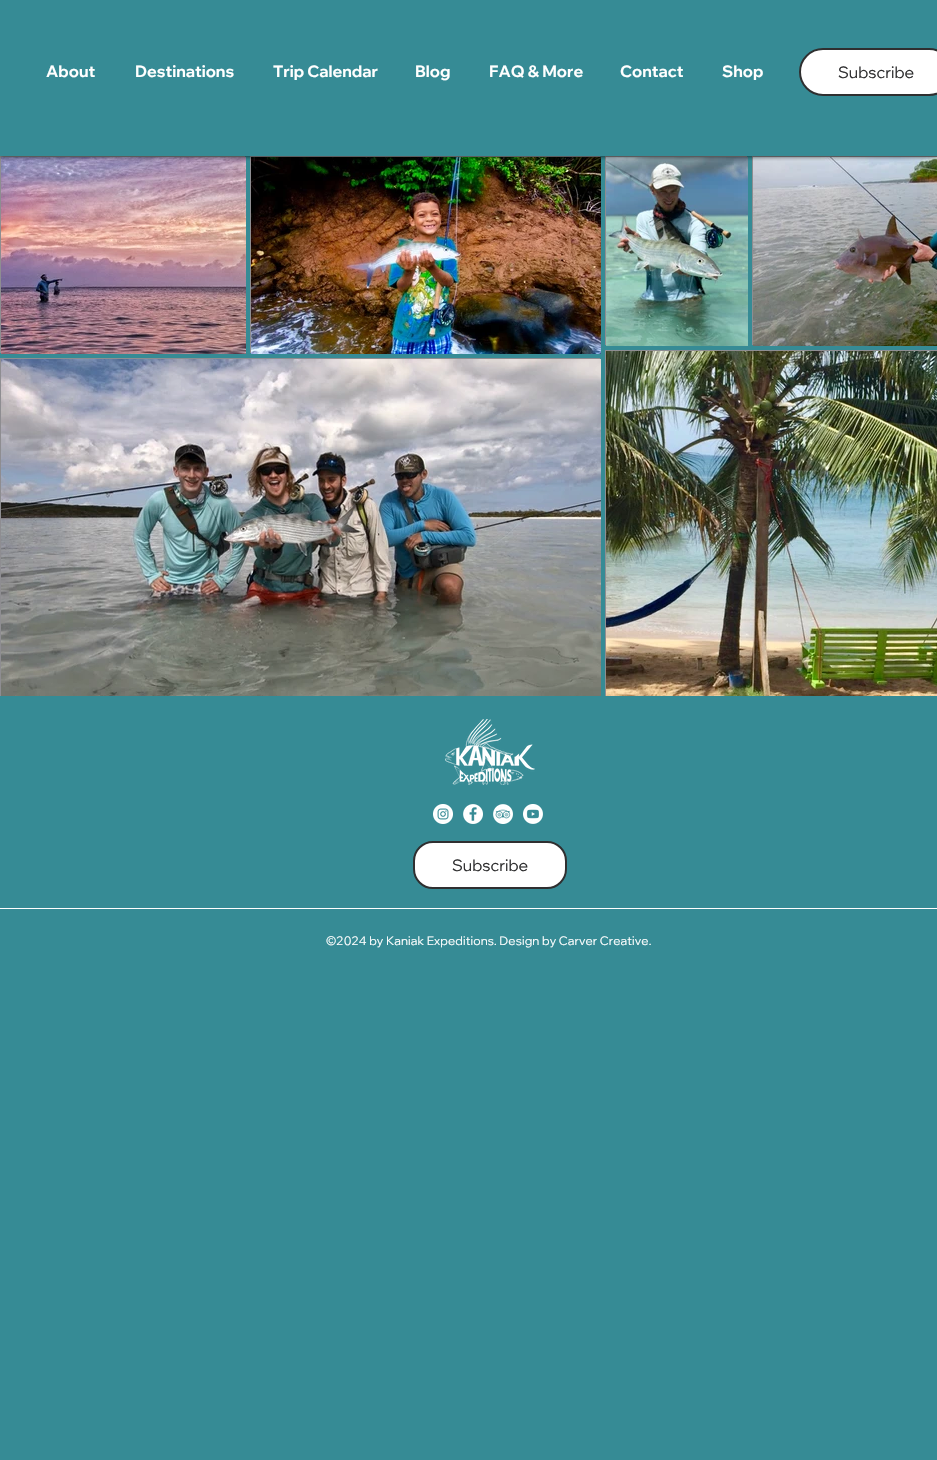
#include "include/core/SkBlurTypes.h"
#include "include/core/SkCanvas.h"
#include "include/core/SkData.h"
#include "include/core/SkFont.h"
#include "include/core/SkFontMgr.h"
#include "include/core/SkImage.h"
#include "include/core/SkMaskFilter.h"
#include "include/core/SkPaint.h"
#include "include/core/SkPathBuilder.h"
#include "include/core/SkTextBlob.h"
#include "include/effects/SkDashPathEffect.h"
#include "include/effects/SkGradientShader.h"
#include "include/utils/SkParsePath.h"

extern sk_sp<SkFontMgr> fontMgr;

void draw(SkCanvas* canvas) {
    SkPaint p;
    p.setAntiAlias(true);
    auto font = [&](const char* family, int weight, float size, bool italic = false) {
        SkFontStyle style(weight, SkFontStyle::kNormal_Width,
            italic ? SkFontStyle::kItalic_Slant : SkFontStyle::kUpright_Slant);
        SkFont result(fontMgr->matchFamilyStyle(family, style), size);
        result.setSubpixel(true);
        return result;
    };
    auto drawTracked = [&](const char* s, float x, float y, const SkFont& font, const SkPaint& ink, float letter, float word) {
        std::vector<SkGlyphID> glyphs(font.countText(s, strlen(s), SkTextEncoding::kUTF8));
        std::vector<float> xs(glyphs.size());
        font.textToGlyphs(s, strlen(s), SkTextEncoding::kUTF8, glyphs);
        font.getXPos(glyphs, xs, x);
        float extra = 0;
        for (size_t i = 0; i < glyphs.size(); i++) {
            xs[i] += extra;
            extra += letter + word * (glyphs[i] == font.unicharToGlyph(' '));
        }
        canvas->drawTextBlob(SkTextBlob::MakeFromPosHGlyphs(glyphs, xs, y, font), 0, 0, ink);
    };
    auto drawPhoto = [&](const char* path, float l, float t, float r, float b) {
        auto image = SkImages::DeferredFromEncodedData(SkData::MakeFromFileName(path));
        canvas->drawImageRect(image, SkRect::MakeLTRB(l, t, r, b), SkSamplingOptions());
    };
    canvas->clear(0xFF368B95);
    p.setColor(0xFF8E8D91);
    canvas->drawRect(SkRect::MakeLTRB(0, 156, 245, 353), p);
    drawPhoto("media/1.png", 1, 157, 246, 354);
    canvas->drawRect(SkRect::MakeLTRB(250, 156, 600, 353), p);
    drawPhoto("media/2.png", 251, 157, 601, 354);
    canvas->drawRect(SkRect::MakeLTRB(605, 156, 747, 345), p);
    drawPhoto("media/4.png", 606, 157, 748, 346);
    canvas->drawRect(SkRect::MakeLTRB(752, 156, 937, 345), p);
    drawPhoto("media/5.png", 753, 157, 937, 346);
    canvas->save();
    canvas->clipRect(SkRect::MakeLTRB(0, 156, 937, 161));
    p.setColor(0x99000000);
    p.setMaskFilter(SkMaskFilter::MakeBlur(kNormal_SkBlurStyle, 2));
    canvas->drawRect(SkRect::MakeLTRB(0, 1, 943, 157), p);
    p.setMaskFilter(nullptr);
    canvas->restore();
    auto font1 = font("Wix Madefor Display", 700, 16);
    p.setColor(0xFFFFFFFF);
    {
        const struct { const char* s; float x, y; } items[] = {
            {"About", 46, 77},
            {"Destinations", 135, 77},
            {"Trip Calendar", 273, 77},
            {"Blog", 415, 77},
            {"FAQ & More", 489, 77},
            {"Contact", 620, 77},
            {"Shop", 722, 77},
        };
        for (auto [s, x, y] : items) {
            canvas->drawString(s, x, y, font1, p);
        }
    }
    canvas->drawRoundRect(SkRect::MakeLTRB(800, 49, 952, 95), 23, 23, p);
    p.setStyle(SkPaint::kStroke_Style);
    p.setStrokeWidth(2);
    p.setColor(0xFF2F2F30);
    canvas->drawRoundRect(SkRect::MakeLTRB(800, 49, 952, 95), 23, 23, p);
    auto font2 = font("Wix Madefor Display", 400, 16);
    p.setStyle(SkPaint::kFill_Style);
    canvas->drawString("Subscribe", 838, 78, font2, p);
    p.setColor(0xFF8E8D91);
    canvas->drawRect(SkRect::MakeLTRB(0, 358, 600, 696), p);
    drawPhoto("media/3.png", 1, 359, 601, 696);
    canvas->drawRect(SkRect::MakeLTRB(605, 350, 937, 696), p);
    drawPhoto("media/6.png", 606, 351, 937, 696);
    drawPhoto("media/7.png", 445, 719, 535, 785);
    drawPhoto("media/8.png", 433, 804, 453, 824);
    drawPhoto("media/9.png", 463, 804, 483, 824);
    drawPhoto("media/10.png", 493, 804, 513, 824);
    drawPhoto("media/11.png", 523, 804, 543, 824);
    p.setColor(0xFFFFFFFF);
    canvas->drawRoundRect(SkRect::MakeLTRB(414, 842, 566, 888), 19, 19, p);
    p.setStyle(SkPaint::kStroke_Style);
    p.setColor(0xFF2F2F30);
    canvas->drawRoundRect(SkRect::MakeLTRB(414, 842, 566, 888), 19, 19, p);
    p.setStyle(SkPaint::kFill_Style);
    canvas->drawString("Subscribe", 452, 871, font2, p);
    p.setColor(0xFFFFFFFF);
    canvas->drawRect(SkRect::MakeLTRB(0, 908, 937, 909), p);
    auto font3 = font("Wix Madefor Display", 400, 12);
    drawTracked("©2024 by Kaniak Expeditions. Design by Carver Creative.", 326, 945, font3, p, 0.12f, 0);
}
